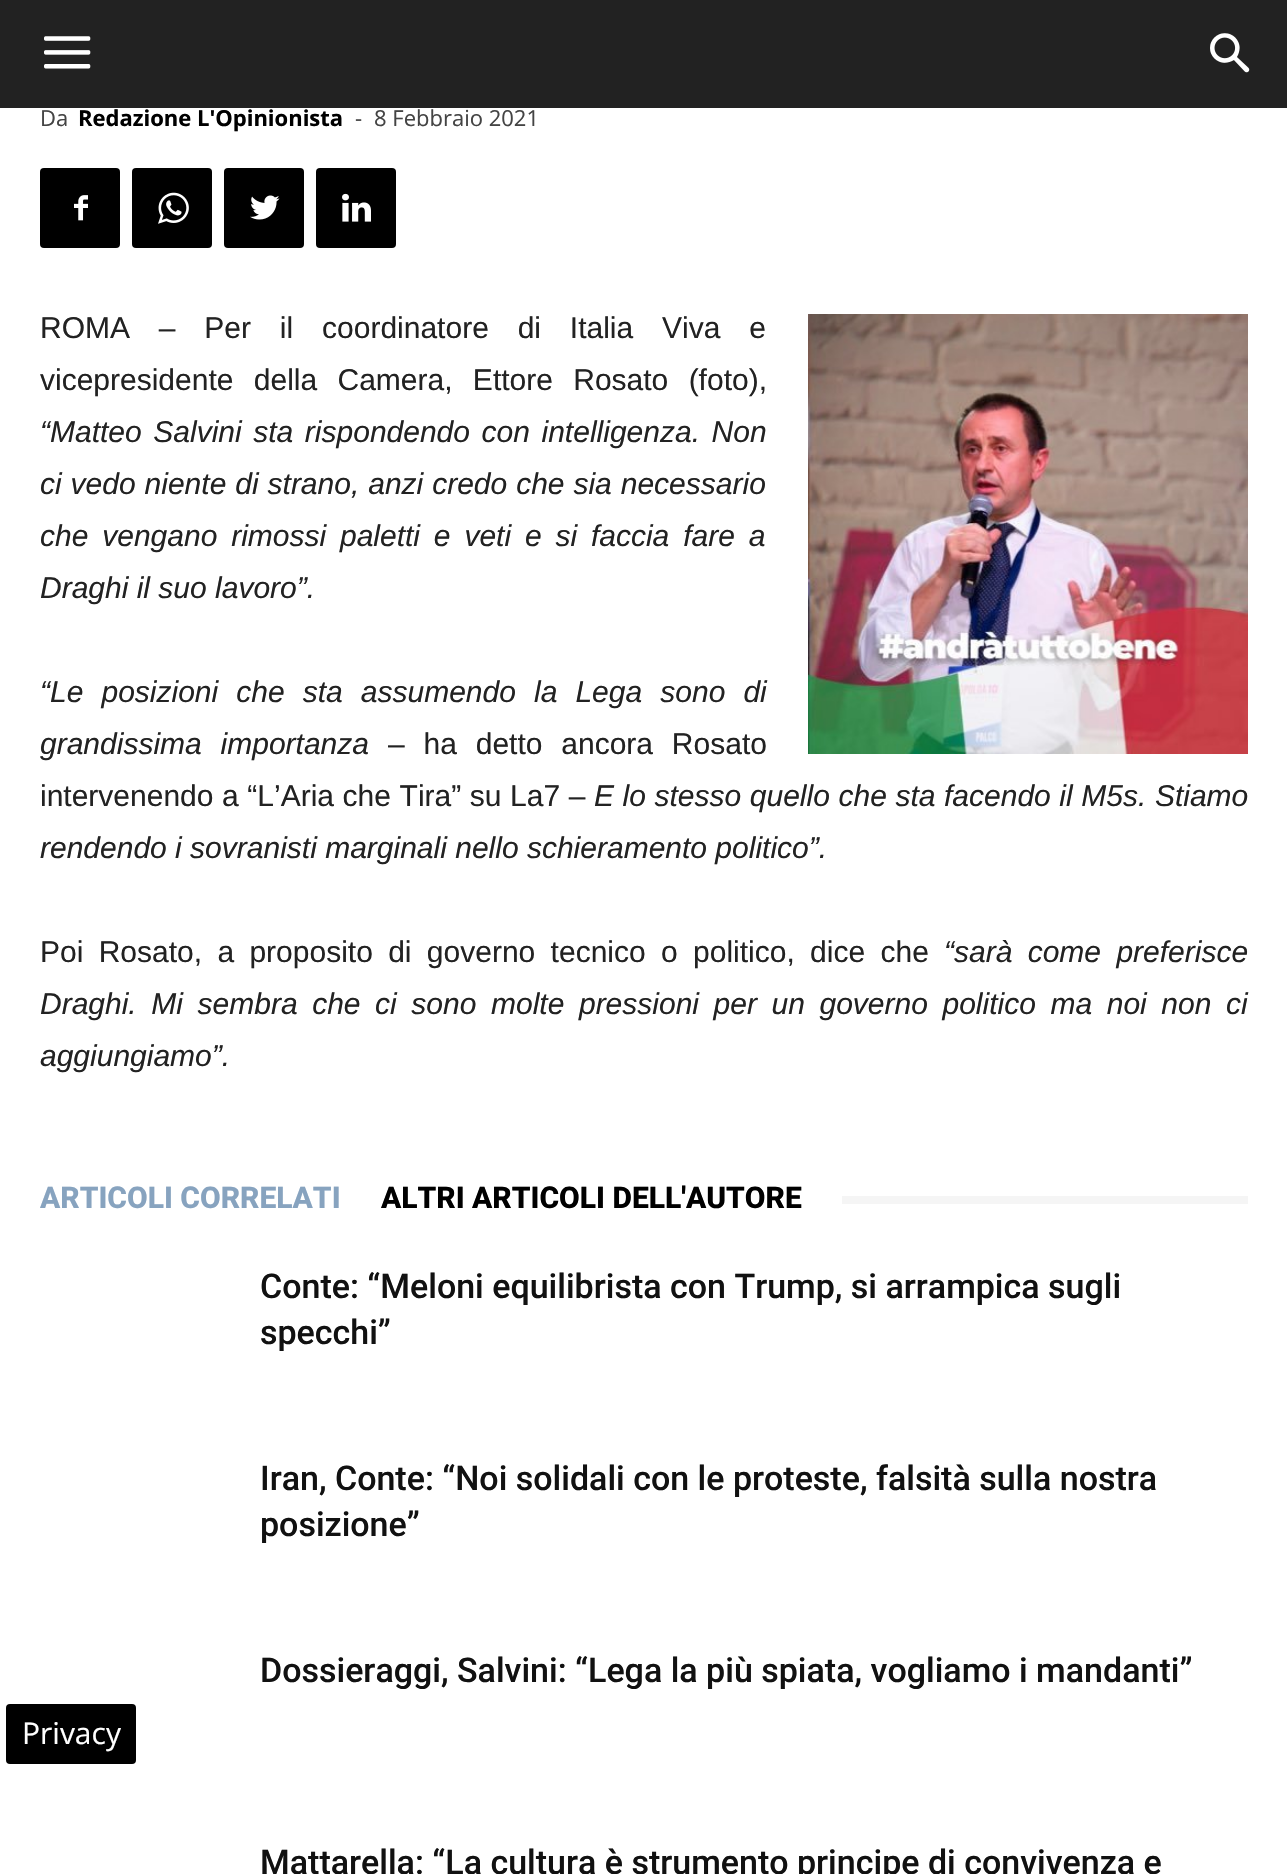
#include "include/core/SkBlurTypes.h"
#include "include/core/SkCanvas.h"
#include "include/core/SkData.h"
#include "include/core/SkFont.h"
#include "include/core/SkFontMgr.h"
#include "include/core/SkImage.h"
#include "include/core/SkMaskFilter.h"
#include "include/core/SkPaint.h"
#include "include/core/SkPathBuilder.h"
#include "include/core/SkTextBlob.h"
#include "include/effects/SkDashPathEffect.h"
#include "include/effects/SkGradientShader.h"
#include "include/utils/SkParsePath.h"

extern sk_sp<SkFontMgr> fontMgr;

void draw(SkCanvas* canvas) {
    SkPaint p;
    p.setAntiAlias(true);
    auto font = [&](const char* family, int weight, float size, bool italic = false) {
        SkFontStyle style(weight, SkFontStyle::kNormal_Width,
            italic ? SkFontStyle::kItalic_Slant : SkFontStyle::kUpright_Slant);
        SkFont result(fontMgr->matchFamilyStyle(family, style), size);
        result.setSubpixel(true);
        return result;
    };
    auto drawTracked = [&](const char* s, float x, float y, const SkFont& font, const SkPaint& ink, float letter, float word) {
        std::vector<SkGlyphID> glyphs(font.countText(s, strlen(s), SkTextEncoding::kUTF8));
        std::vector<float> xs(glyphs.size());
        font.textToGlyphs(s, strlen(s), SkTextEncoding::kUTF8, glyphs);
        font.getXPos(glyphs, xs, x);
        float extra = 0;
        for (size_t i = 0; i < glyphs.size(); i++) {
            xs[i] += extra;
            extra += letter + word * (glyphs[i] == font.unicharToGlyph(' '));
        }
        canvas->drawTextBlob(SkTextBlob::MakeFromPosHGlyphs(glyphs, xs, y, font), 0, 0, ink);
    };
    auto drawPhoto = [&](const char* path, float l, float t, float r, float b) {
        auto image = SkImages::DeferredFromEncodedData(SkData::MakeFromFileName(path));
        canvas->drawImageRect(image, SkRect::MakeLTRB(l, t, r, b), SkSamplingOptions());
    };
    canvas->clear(0xFFFFFFFF);
    p.setColor(0xFF222222);
    canvas->drawRect(SkRect::MakeLTRB(0, 0, 1287, 108), p);
    drawPhoto("media/1.png", 44, 36, 91, 69);
    drawPhoto("media/2.png", 1210, 33, 1250, 73);
    auto font1 = font("Open Sans", 400, 22);
    p.setColor(0xFF444444);
    canvas->drawString("Da", 40, 126, font1, p);
    auto font2 = font("Open Sans", 700, 22);
    p.setColor(0xFF000000);
    canvas->drawString("Redazione L'Opinionista", 78, 126, font2, p);
    p.setColor(0xFF444444);
    canvas->drawString("-", 355, 126, font1, p);
    canvas->drawString("8 Febbraio 2021", 374, 126, font1, p);
    p.setColor(0xFF000000);
    canvas->drawRoundRect(SkRect::MakeLTRB(40, 168, 120, 248), 4, 4, p);
    drawPhoto("media/3.png", 74, 195, 88, 221);
    canvas->drawRoundRect(SkRect::MakeLTRB(132, 168, 212, 248), 4, 4, p);
    drawPhoto("media/4.png", 158, 192, 189, 224);
    canvas->drawRoundRect(SkRect::MakeLTRB(224, 168, 304, 248), 4, 4, p);
    drawPhoto("media/5.png", 250, 195, 280, 220);
    canvas->drawRoundRect(SkRect::MakeLTRB(316, 168, 396, 248), 4, 4, p);
    drawPhoto("media/6.png", 342, 193, 371, 222);
    auto font3 = font("Liberation Sans", 400, 30);
    p.setColor(0xFF222222);
    drawTracked("ROMA – Per il coordinatore di Italia Viva e", 40, 338, font3, p, 0, 20.5f);
    drawPhoto("media/7.png", 808, 314, 1248, 754);
    drawTracked("vicepresidente della Camera, Ettore Rosato (foto),", 40, 390, font3, p, 0, 12);
    auto font4 = font("Liberation Sans", 400, 30, true);
    drawTracked("“Matteo Salvini sta rispondendo con intelligenza. Non", 40, 442, font4, p, 0, 3.25f);
    drawTracked("ci vedo niente di strano, anzi credo che sia necessario", 40, 494, font4, p, 0, 0.6f);
    drawTracked("che vengano rimossi paletti e veti e si faccia fare a", 40, 546, font4, p, 0, 5.5f);
    canvas->drawString("Draghi il suo lavoro”.", 40, 598, font4, p);
    drawTracked("“Le posizioni che sta assumendo la Lega sono di", 40, 702, font4, p, 0, 9.75f);
    drawTracked("grandissima importanza", 40, 754, font4, p, 0, 10.5f);
    drawTracked("– ha detto ancora Rosato", 388, 754, font3, p, 0, 10.5f);
    drawTracked("intervenendo a “L’Aria che Tira” su La7 –", 40, 806, font3, p, 0, 0.25f);
    drawTracked("E lo stesso quello che sta facendo il M5s. Stiamo", 594, 806, font4, p, 0, 0.25f);
    canvas->drawString("rendendo i sovranisti marginali nello schieramento politico”.", 40, 858, font4, p);
    drawTracked("Poi Rosato, a proposito di governo tecnico o politico, dice che", 40, 962, font3, p, 0, 7);
    drawTracked("“sarà come preferisce", 944, 962, font4, p, 0, 7);
    drawTracked("Draghi. Mi sembra che ci sono molte pressioni per un governo politico ma noi non ci", 40, 1014, font4, p, 0, 6.25f);
    canvas->drawString("aggiungiamo”.", 40, 1066, font4, p);
    auto font5 = font("Roboto", 800, 30);
    p.setColor(0xFF87A3BF);
    canvas->drawString("ARTICOLI CORRELATI", 40, 1208, font5, p);
    p.setColor(0xFF000000);
    canvas->drawString("ALTRI ARTICOLI DELL'AUTORE", 381, 1208, font5, p);
    p.setColor(0xFFF5F5F5);
    canvas->drawRect(SkRect::MakeLTRB(842, 1196, 1248, 1204), p);
    auto font6 = font("Roboto", 500, 34);
    p.setColor(0xFF111111);
    {
        const struct { const char* s; float x, y; } items[] = {
            {"Conte: “Meloni equilibrista con Trump, si arrampica sugli", 260, 1298},
            {"specchi”", 260, 1344},
            {"Iran, Conte: “Noi solidali con le proteste, falsità sulla nostra", 260, 1490},
            {"posizione”", 260, 1536},
            {"Dossieraggi, Salvini: “Lega la più spiata, vogliamo i mandanti”", 260, 1682},
            {"Mattarella: “La cultura è strumento principe di convivenza e", 260, 1874},
        };
        for (auto [s, x, y] : items) {
            canvas->drawString(s, x, y, font6, p);
        }
    }
    p.setColor(0xFF000000);
    canvas->drawRoundRect(SkRect::MakeLTRB(6, 1704, 136, 1764), 4, 4, p);
    auto font7 = font("Open Sans", 400, 30);
    p.setColor(0xFFFFFFFF);
    canvas->drawString("Privacy", 22, 1744, font7, p);
}
